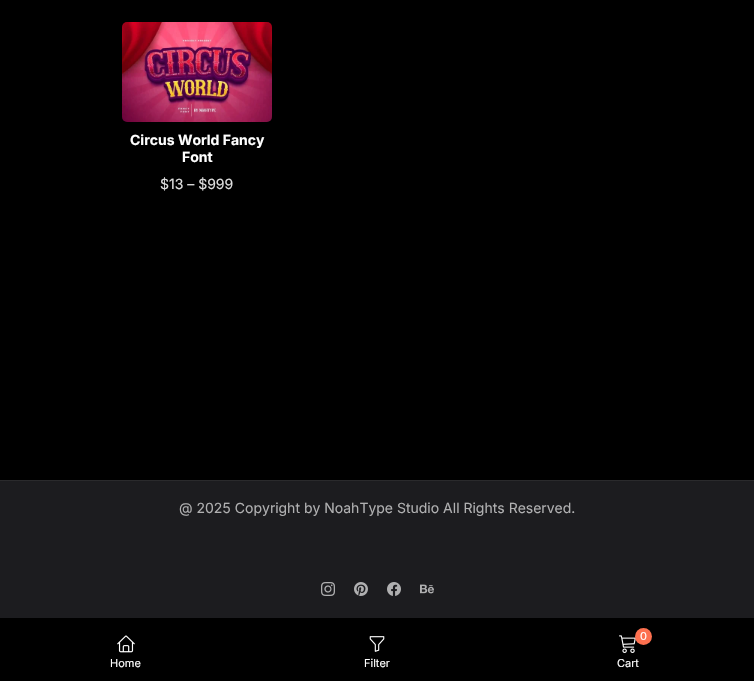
#include "include/core/SkBlurTypes.h"
#include "include/core/SkCanvas.h"
#include "include/core/SkData.h"
#include "include/core/SkFont.h"
#include "include/core/SkFontMgr.h"
#include "include/core/SkImage.h"
#include "include/core/SkMaskFilter.h"
#include "include/core/SkPaint.h"
#include "include/core/SkPathBuilder.h"
#include "include/core/SkTextBlob.h"
#include "include/effects/SkDashPathEffect.h"
#include "include/effects/SkGradientShader.h"
#include "include/utils/SkParsePath.h"

extern sk_sp<SkFontMgr> fontMgr;

void draw(SkCanvas* canvas) {
    SkPaint p;
    p.setAntiAlias(true);
    auto font = [&](const char* family, int weight, float size, bool italic = false) {
        SkFontStyle style(weight, SkFontStyle::kNormal_Width,
            italic ? SkFontStyle::kItalic_Slant : SkFontStyle::kUpright_Slant);
        SkFont result(fontMgr->matchFamilyStyle(family, style), size);
        result.setSubpixel(true);
        return result;
    };
    auto drawPhoto = [&](const char* path, float l, float t, float r, float b) {
        auto image = SkImages::DeferredFromEncodedData(SkData::MakeFromFileName(path));
        canvas->drawImageRect(image, SkRect::MakeLTRB(l, t, r, b), SkSamplingOptions());
    };
    canvas->clear(0xFF000000);
    drawPhoto("media/1.png", 122, 22, 272, 122);
    auto font1 = font("Inter", 700, 14);
    p.setColor(0xFFFFFFFF);
    canvas->drawString("Circus World Fancy", 130, 145, font1, p);
    canvas->drawString("Font", 182, 162, font1, p);
    auto font2 = font("Inter", 400, 14);
    p.setColor(0xFFE0E0E0);
    canvas->drawString("$13 – $999", 160, 189, font2, p);
    p.setColor(0xFF1C1C1F);
    canvas->drawRect(SkRect::MakeLTRB(0, 481, 754, 618), p);
    p.setColor(0xFF2A2A2C);
    canvas->drawRect(SkRect::MakeLTRB(0, 480, 754, 481), p);
    p.setColor(0xFFB0B0B1);
    canvas->drawString("@ 2025 Copyright by NoahType Studio All Rights Reserved.", 179, 513, font2, p);
    drawPhoto("media/2.png", 321, 582, 335, 596);
    drawPhoto("media/3.png", 354, 582, 368, 596);
    drawPhoto("media/4.png", 387, 582, 401, 596);
    drawPhoto("media/5.png", 420, 584, 434, 594);
    drawPhoto("media/6.png", 117, 635, 135, 653);
    auto font3 = font("Inter", 400, 11);
    p.setColor(0xFFFFFFFF);
    canvas->drawString("Home", 110, 667, font3, p);
    drawPhoto("media/7.png", 369, 636, 385, 652);
    canvas->drawString("Filter", 364, 667, font3, p);
    drawPhoto("media/8.png", 619, 635, 636, 653);
    p.setColor(0xFFFD704F);
    canvas->drawCircle(643.5f, 636.5f, 8.5f, p);
    p.setColor(0xFFFFFFFF);
    canvas->drawString("0", 640, 640, font3, p);
    canvas->drawString("Cart", 617, 667, font3, p);
}
